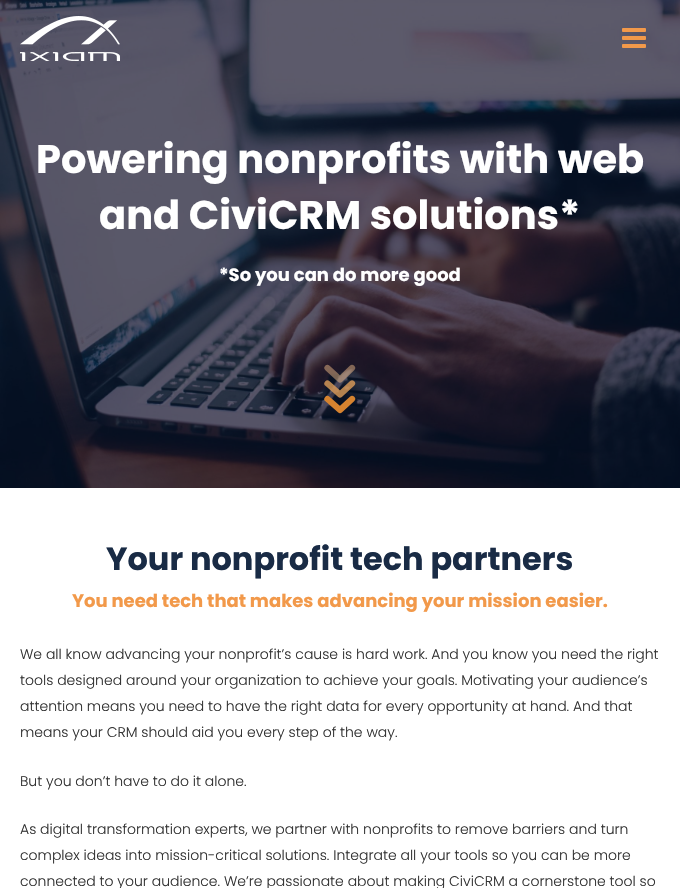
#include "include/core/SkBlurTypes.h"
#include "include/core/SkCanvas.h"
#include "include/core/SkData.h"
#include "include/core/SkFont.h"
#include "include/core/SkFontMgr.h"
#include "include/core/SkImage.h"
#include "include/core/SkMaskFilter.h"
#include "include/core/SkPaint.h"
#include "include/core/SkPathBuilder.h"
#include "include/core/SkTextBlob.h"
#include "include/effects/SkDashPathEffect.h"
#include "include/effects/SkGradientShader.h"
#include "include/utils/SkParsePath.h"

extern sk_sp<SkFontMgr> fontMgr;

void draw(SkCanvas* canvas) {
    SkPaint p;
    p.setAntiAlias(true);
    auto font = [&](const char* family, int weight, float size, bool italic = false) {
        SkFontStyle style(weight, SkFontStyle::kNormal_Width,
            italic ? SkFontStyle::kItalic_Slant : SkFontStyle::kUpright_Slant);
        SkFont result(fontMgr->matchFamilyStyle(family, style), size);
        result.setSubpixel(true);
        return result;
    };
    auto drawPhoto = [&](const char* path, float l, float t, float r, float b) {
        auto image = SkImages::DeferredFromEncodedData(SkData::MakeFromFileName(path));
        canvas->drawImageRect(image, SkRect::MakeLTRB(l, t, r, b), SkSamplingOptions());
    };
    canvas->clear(0xFFFFFFFF);
    drawPhoto("media/3.png", 0, 0, 680, 488);
    drawPhoto("media/1.png", 20, 16, 120, 61);
    drawPhoto("media/2.png", 622, 28, 646, 48);
    auto font1 = font("Poppins", 700, 40);
    p.setColor(0xFFFFFFFF);
    canvas->drawString("Powering nonprofits with web", 36, 173, font1, p);
    canvas->drawString("and CiviCRM solutions*", 99, 229, font1, p);
    auto font2 = font("Poppins", 700, 18);
    canvas->drawString("*So you can do more good", 219, 281, font2, p);
    p.setStyle(SkPaint::kStroke_Style);
    p.setStrokeWidth(6.3f);
    p.setStrokeCap(SkPaint::kRound_Cap);
    p.setStrokeJoin(SkPaint::kRound_Join);
    p.setColor(0xFFD6832F);
    canvas->drawPath(SkPathBuilder().moveTo(352, 399).lineTo(340, 410).lineTo(327.5f, 399).detach(), p);
    p.setColor(0xCCDE9D59);
    canvas->drawPath(SkPathBuilder().moveTo(352, 383.5f).lineTo(340, 394.5f).lineTo(327.5f, 383.5f).detach(), p);
    p.setColor(0x80E7B684);
    canvas->drawPath(SkPathBuilder().moveTo(352, 368).lineTo(340, 379.5f).lineTo(327.5f, 368).detach(), p);
    auto font3 = font("Poppins", 700, 32);
    p.setStyle(SkPaint::kFill_Style);
    p.setColor(0xFF192B45);
    canvas->drawString("Your nonprofit tech partners", 106, 570, font3, p);
    p.setColor(0xFFF2994A);
    canvas->drawString("You need tech that makes advancing your mission easier.", 72, 607, font2, p);
    auto font4 = font("Poppins", 300, 14);
    p.setColor(0xFF333333);
    {
        const struct { const char* s; float x, y; } items[] = {
            {"We all know advancing your nonprofit’s cause is hard work. And you know you need the right", 20, 659},
            {"tools designed around your organization to achieve your goals. Motivating your audience’s", 20, 685},
            {"attention means you need to have the right data for every opportunity at hand. And that", 20, 711},
            {"means your CRM should aid you every step of the way.", 20, 737},
            {"But you don’t have to do it alone.", 20, 786},
            {"As digital transformation experts, we partner with nonprofits to remove barriers and turn", 20, 834},
            {"complex ideas into mission-critical solutions. Integrate all your tools so you can be more", 20, 860},
            {"connected to your audience. We’re passionate about making CiviCRM a cornerstone tool so", 20, 886},
        };
        for (auto [s, x, y] : items) {
            canvas->drawString(s, x, y, font4, p);
        }
    }
}
